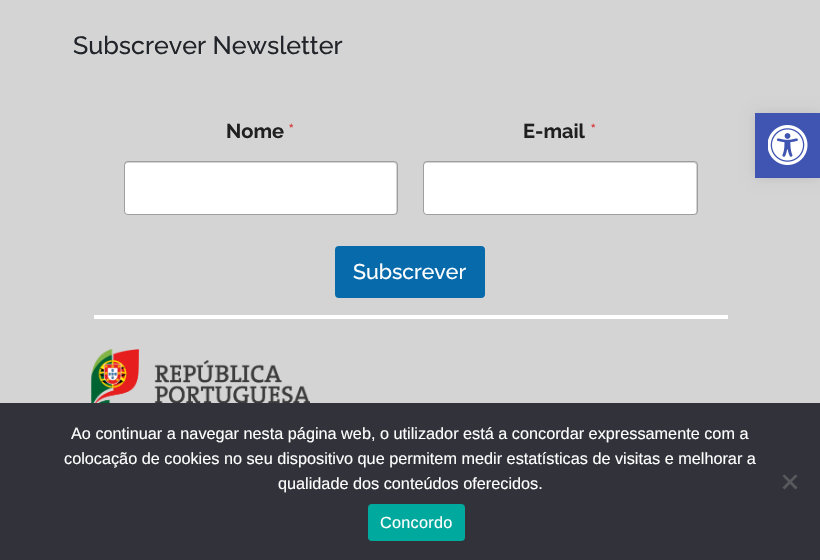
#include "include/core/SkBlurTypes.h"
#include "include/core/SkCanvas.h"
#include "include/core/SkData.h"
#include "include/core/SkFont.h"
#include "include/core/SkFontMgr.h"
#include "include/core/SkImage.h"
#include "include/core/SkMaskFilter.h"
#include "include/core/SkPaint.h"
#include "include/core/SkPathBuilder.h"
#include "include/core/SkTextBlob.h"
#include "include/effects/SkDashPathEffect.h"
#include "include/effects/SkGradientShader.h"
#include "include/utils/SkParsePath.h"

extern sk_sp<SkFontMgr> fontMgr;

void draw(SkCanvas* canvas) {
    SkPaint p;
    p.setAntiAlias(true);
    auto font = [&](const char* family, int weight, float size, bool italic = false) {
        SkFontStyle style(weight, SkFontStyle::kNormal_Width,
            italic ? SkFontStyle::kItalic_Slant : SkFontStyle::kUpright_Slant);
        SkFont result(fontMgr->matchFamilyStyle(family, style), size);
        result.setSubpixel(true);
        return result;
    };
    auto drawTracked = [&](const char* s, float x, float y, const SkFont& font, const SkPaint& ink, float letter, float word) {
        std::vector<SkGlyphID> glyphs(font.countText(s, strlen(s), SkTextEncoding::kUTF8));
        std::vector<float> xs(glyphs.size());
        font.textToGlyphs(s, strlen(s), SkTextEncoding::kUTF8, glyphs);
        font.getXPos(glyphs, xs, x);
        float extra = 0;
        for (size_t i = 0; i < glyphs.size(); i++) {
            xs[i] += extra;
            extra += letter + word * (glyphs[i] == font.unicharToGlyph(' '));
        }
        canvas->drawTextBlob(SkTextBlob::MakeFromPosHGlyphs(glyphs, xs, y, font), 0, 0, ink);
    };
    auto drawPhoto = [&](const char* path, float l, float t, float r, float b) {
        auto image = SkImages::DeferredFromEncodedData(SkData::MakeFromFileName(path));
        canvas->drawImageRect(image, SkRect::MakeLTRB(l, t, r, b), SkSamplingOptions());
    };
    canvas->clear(0xFFD4D4D5);
    auto font1 = font("Raleway", 500, 25);
    p.setColor(0xFF212529);
    canvas->drawString("Subscrever Newsletter", 73, 54, font1, p);
    p.setColor(0xFFFFFFFF);
    canvas->drawRect(SkRect::MakeLTRB(94, 315, 728, 319), p);
    auto font2 = font("Raleway", 700, 20);
    p.setColor(0xFF202020);
    canvas->drawString("Nome", 226, 138, font2, p);
    auto font3 = font("Raleway", 400, 20);
    p.setColor(0xFFD63637);
    canvas->drawString("*", 288, 138, font3, p);
    p.setColor(0xFFFFFFFF);
    canvas->drawRoundRect(SkRect::MakeLTRB(125, 163, 396, 214), 2.5f, 2.5f, p);
    p.setStyle(SkPaint::kStroke_Style);
    p.setStrokeWidth(1);
    p.setColor(0x40000000);
    canvas->drawRoundRect(SkRect::MakeLTRB(124.5f, 161.5f, 397.5f, 214.5f), 3.5f, 3.5f, p);
    p.setStyle(SkPaint::kFill_Style);
    p.setColor(0xFF202020);
    canvas->drawString("E-mail", 523, 138, font2, p);
    p.setColor(0xFFD63637);
    canvas->drawString("*", 590, 138, font3, p);
    p.setColor(0xFFFFFFFF);
    canvas->drawRoundRect(SkRect::MakeLTRB(424, 163, 696, 214), 2.5f, 2.5f, p);
    p.setStyle(SkPaint::kStroke_Style);
    p.setColor(0x40000000);
    canvas->drawRoundRect(SkRect::MakeLTRB(423.5f, 161.5f, 697.5f, 214.5f), 3.5f, 3.5f, p);
    p.setStyle(SkPaint::kFill_Style);
    p.setColor(0xFF066AAB);
    canvas->drawRoundRect(SkRect::MakeLTRB(335, 246, 485, 298), 4, 4, p);
    auto font4 = font("Raleway", 500, 21.25f);
    p.setColor(0xFFFFFFFF);
    canvas->drawString("Subscrever", 353, 279, font4, p);
    drawPhoto("media/1.png", 91, 349, 310, 403);
    p.setColor(0x1A000000);
    p.setMaskFilter(SkMaskFilter::MakeBlur(kNormal_SkBlurStyle, 6));
    canvas->drawRect(SkRect::MakeLTRB(755, 113, 820, 178), p);
    p.setMaskFilter(nullptr);
    p.setColor(0xFF4054B2);
    canvas->drawRect(SkRect::MakeLTRB(755, 113, 820, 178), p);
    drawPhoto("media/2.png", 768, 125, 808, 165);
    p.setColor(0xFF32323A);
    canvas->drawRect(SkRect::MakeLTRB(0, 403, 820, 560), p);
    auto font5 = font("Liberation Sans", 400, 16.25f);
    p.setColor(0xFFFFFFFF);
    {
        const struct { const char* s; float x, y; } items[] = {
            {"Ao continuar a navegar nesta página web, o utilizador está a concordar expressamente com a", 71, 439},
            {"colocação de cookies no seu dispositivo que permitem medir estatísticas de visitas e melhorar a", 64, 464},
            {"qualidade dos conteúdos oferecidos.", 278, 489},
        };
        for (auto [s, x, y] : items) {
            canvas->drawString(s, x, y, font5, p);
        }
    }
    p.setColor(0xFF59595D);
    canvas->drawPath(SkPathBuilder().moveTo(795.5f, 474.5f).lineTo(797.5f, 476).lineTo(784.5f, 489.5f).lineTo(782.5f, 487.5f).close().detach(), p);
    canvas->drawPath(SkPathBuilder().moveTo(782.5f, 476).lineTo(784.5f, 474.5f).lineTo(797.5f, 487.5f).lineTo(795.5f, 489.5f).close().detach(), p);
    p.setColor(0xFF00A99D);
    canvas->drawRoundRect(SkRect::MakeLTRB(368, 504, 465, 541), 4, 4, p);
    p.setColor(0xFFFFFFFF);
    drawTracked("Concordo", 380, 528, font5, p, 0.25f, 0);
}
